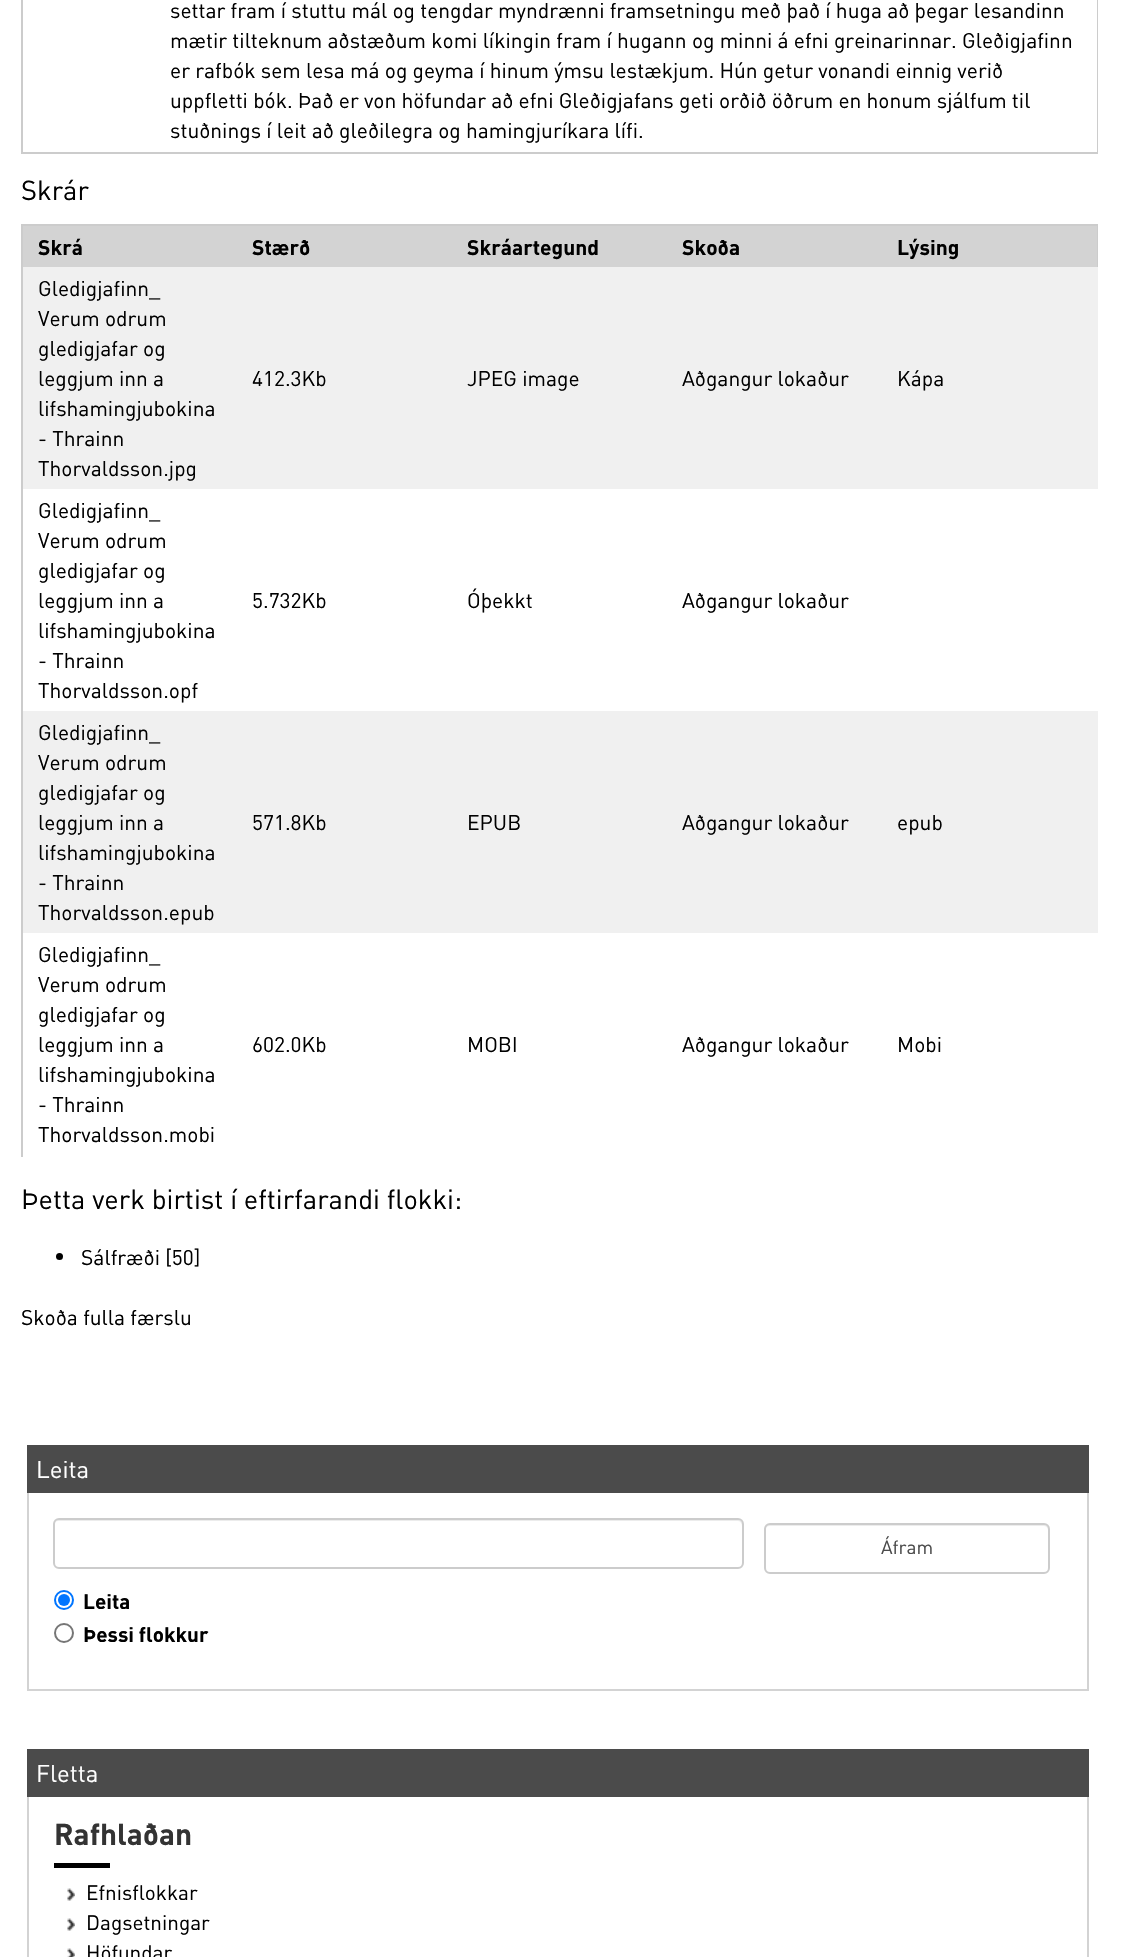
#include "include/core/SkBlurTypes.h"
#include "include/core/SkCanvas.h"
#include "include/core/SkData.h"
#include "include/core/SkFont.h"
#include "include/core/SkFontMgr.h"
#include "include/core/SkImage.h"
#include "include/core/SkMaskFilter.h"
#include "include/core/SkPaint.h"
#include "include/core/SkPathBuilder.h"
#include "include/core/SkTextBlob.h"
#include "include/effects/SkDashPathEffect.h"
#include "include/effects/SkGradientShader.h"
#include "include/utils/SkParsePath.h"

extern sk_sp<SkFontMgr> fontMgr;

void draw(SkCanvas* canvas) {
    SkPaint p;
    p.setAntiAlias(true);
    auto font = [&](const char* family, int weight, float size, bool italic = false) {
        SkFontStyle style(weight, SkFontStyle::kNormal_Width,
            italic ? SkFontStyle::kItalic_Slant : SkFontStyle::kUpright_Slant);
        SkFont result(fontMgr->matchFamilyStyle(family, style), size);
        result.setSubpixel(true);
        return result;
    };
    auto drawPhoto = [&](const char* path, float l, float t, float r, float b) {
        auto image = SkImages::DeferredFromEncodedData(SkData::MakeFromFileName(path));
        canvas->drawImageRect(image, SkRect::MakeLTRB(l, t, r, b), SkSamplingOptions());
    };
    canvas->clear(0xFFFFFFFF);
    {
        const struct { float l, t, r, b; SkColor color; } items[] = {
            {1097, 0, 1098, 153, 0xFFCCCCCC},
            {21, 152, 1098, 154, 0xFFCCCCCC},
            {21, 0, 23, 153, 0xFFCCCCCC},
        };
        for (auto [l, t, r, b, color] : items) {
            p.setColor(color);
            canvas->drawRect(SkRect::MakeLTRB(l, t, r, b), p);
        }
    }
    auto font1 = font("DIN", 400, 21);
    p.setColor(0xFF000000);
    {
        const struct { const char* s; float x, y; } items[] = {
            {"settar fram í stuttu mál og tengdar myndrænni framsetningu með það í huga að þegar lesandinn", 170, 18},
            {"mætir tilteknum aðstæðum komi líkingin fram í hugann og minni á efni greinarinnar. Gleðigjafinn", 170, 48},
            {"er rafbók sem lesa má og geyma í hinum ýmsu lestækjum. Hún getur vonandi einnig verið", 170, 78},
            {"uppfletti bók. Það er von höfundar að efni Gleðigjafans geti orðið öðrum en honum sjálfum til", 170, 108},
            {"stuðnings í leit að gleðilegra og hamingjuríkara lífi.", 170, 138},
        };
        for (auto [s, x, y] : items) {
            canvas->drawString(s, x, y, font1, p);
        }
    }
    auto font2 = font("DIN", 400, 27.25f);
    canvas->drawString("Skrár", 21, 200, font2, p);
    {
        const struct { float l, t, r, b; SkColor color; } items[] = {
            {21, 224, 1098, 226, 0xFFCCCCCC},
            {1097, 224, 1098, 267, 0xFFCCCCCC},
            {21, 224, 23, 1157, 0xFFCCCCCC},
            {23, 226, 1097, 267, 0xFFD3D3D3},
        };
        for (auto [l, t, r, b, color] : items) {
            p.setColor(color);
            canvas->drawRect(SkRect::MakeLTRB(l, t, r, b), p);
        }
    }
    auto font3 = font("DIN", 700, 21);
    p.setColor(0xFF000000);
    {
        const struct { const char* s; float x, y; } items[] = {
            {"Skrá", 38, 255},
            {"Stærð", 252, 255},
            {"Skráartegund", 467, 255},
            {"Skoða", 682, 255},
            {"Lýsing", 897, 255},
        };
        for (auto [s, x, y] : items) {
            canvas->drawString(s, x, y, font3, p);
        }
    }
    p.setColor(0xFFF0F0F0);
    canvas->drawRect(SkRect::MakeLTRB(23, 267, 1098, 489), p);
    p.setColor(0xFF000000);
    {
        const struct { const char* s; float x, y; } items[] = {
            {"Gledigjafinn_", 38, 296},
            {"Verum odrum", 38, 326},
            {"gledigjafar og", 38, 356},
            {"leggjum inn a", 38, 386},
            {"lifshamingjubokina", 38, 416},
            {"- Thrainn", 38, 446},
            {"Thorvaldsson.jpg", 38, 476},
            {"412.3Kb", 252, 386},
            {"JPEG image", 467, 386},
            {"Aðgangur lokaður", 682, 386},
            {"Kápa", 897, 386},
            {"Gledigjafinn_", 38, 518},
            {"Verum odrum", 38, 548},
            {"gledigjafar og", 38, 578},
            {"leggjum inn a", 38, 608},
            {"lifshamingjubokina", 38, 638},
            {"- Thrainn", 38, 668},
            {"Thorvaldsson.opf", 38, 698},
            {"5.732Kb", 252, 608},
            {"Óþekkt", 467, 608},
            {"Aðgangur lokaður", 682, 608},
        };
        for (auto [s, x, y] : items) {
            canvas->drawString(s, x, y, font1, p);
        }
    }
    p.setColor(0xFFF0F0F0);
    canvas->drawRect(SkRect::MakeLTRB(23, 711, 1098, 933), p);
    p.setColor(0xFF000000);
    {
        const struct { const char* s; float x, y; } items[] = {
            {"Gledigjafinn_", 38, 740},
            {"Verum odrum", 38, 770},
            {"gledigjafar og", 38, 800},
            {"leggjum inn a", 38, 830},
            {"lifshamingjubokina", 38, 860},
            {"- Thrainn", 38, 890},
            {"Thorvaldsson.epub", 38, 920},
            {"571.8Kb", 252, 830},
            {"EPUB", 467, 830},
            {"Aðgangur lokaður", 682, 830},
            {"epub", 897, 830},
            {"Gledigjafinn_", 38, 962},
            {"Verum odrum", 38, 992},
            {"gledigjafar og", 38, 1022},
            {"leggjum inn a", 38, 1052},
            {"lifshamingjubokina", 38, 1082},
            {"- Thrainn", 38, 1112},
            {"Thorvaldsson.mobi", 38, 1142},
            {"602.0Kb", 252, 1052},
            {"MOBI", 467, 1052},
            {"Aðgangur lokaður", 682, 1052},
            {"Mobi", 897, 1052},
        };
        for (auto [s, x, y] : items) {
            canvas->drawString(s, x, y, font1, p);
        }
    }
    canvas->drawString("Þetta verk birtist í eftirfarandi flokki:", 21, 1209, font2, p);
    canvas->drawCircle(59.5f, 1256.5f, 3.5f, p);
    canvas->drawString("Sálfræði [50]", 81, 1265, font1, p);
    canvas->drawString("Skoða fulla færslu", 21, 1325, font1, p);
    p.setStyle(SkPaint::kStroke_Style);
    p.setStrokeWidth(2);
    p.setColor(0xFFD3D3D3);
    canvas->drawRect(SkRect::MakeLTRB(28, 1459, 1088, 1690), p);
    p.setStyle(SkPaint::kFill_Style);
    p.setColor(0xFF4B4B4B);
    canvas->drawRect(SkRect::MakeLTRB(27, 1445, 1089, 1493), p);
    auto font4 = font("DIN", 400, 24);
    p.setColor(0xFFFFFFFF);
    canvas->drawString("Leita", 36, 1478, font4, p);
    p.setColor(0xFFECECEC);
    canvas->drawPath(SkPathBuilder().moveTo(58, 1521).lineTo(738, 1521).cubicTo(740, 1521, 742, 1523, 742, 1526).lineTo(742, 1564).lineTo(741, 1567).cubicTo(742, 1566, 743, 1564, 743, 1563).lineTo(743, 1525).cubicTo(743, 1522, 741, 1520, 738, 1520).lineTo(59, 1520).cubicTo(56, 1520, 54, 1522, 54, 1525).lineTo(54, 1526).cubicTo(54, 1523, 56, 1521, 58, 1521).close().detach(), p);
    p.setStyle(SkPaint::kStroke_Style);
    p.setColor(0xFFCCCCCC);
    canvas->drawRoundRect(SkRect::MakeLTRB(54, 1519, 743, 1568), 5, 5, p);
    p.setStyle(SkPaint::kFill_Style);
    p.setColor(0xFFECECEC);
    canvas->drawPath(SkPathBuilder().moveTo(770, 1526).lineTo(1044, 1526).cubicTo(1046, 1526, 1048, 1528, 1048, 1530).lineTo(1048, 1570).cubicTo(1049, 1569, 1049, 1568, 1049, 1567).lineTo(1049, 1529).cubicTo(1049, 1526, 1047, 1524, 1044, 1524).lineTo(770, 1524).cubicTo(767, 1524, 765, 1526, 765, 1529).lineTo(765, 1530).cubicTo(765, 1528, 767, 1526, 770, 1526).close().detach(), p);
    p.setStyle(SkPaint::kStroke_Style);
    p.setColor(0xFFCCCCCC);
    canvas->drawRoundRect(SkRect::MakeLTRB(765, 1524, 1049, 1573), 5, 5, p);
    auto font5 = font("DIN", 400, 19);
    p.setStyle(SkPaint::kFill_Style);
    p.setColor(0xFF4B4B4B);
    canvas->drawString("Áfram", 881, 1554, font5, p);
    p.setStyle(SkPaint::kStroke_Style);
    p.setColor(0xFF0075FF);
    canvas->drawCircle(64, 1600, 9, p);
    p.setStyle(SkPaint::kFill_Style);
    canvas->drawCircle(64, 1600, 6, p);
    auto font6 = font("DIN", 700, 20.75f);
    p.setColor(0xFF000000);
    canvas->drawString("Leita", 83, 1609, font6, p);
    p.setStyle(SkPaint::kStroke_Style);
    p.setColor(0xFF767676);
    canvas->drawCircle(64, 1633, 9, p);
    p.setStyle(SkPaint::kFill_Style);
    p.setColor(0xFF000000);
    canvas->drawString("Þessi flokkur", 83, 1642, font6, p);
    p.setStyle(SkPaint::kStroke_Style);
    p.setColor(0xFFD3D3D3);
    canvas->drawRect(SkRect::MakeLTRB(28, 1764, 1088, 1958), p);
    p.setStyle(SkPaint::kFill_Style);
    p.setColor(0xFF4B4B4B);
    canvas->drawRect(SkRect::MakeLTRB(27, 1749, 1089, 1797), p);
    p.setColor(0xFFFFFFFF);
    canvas->drawString("Fletta", 36, 1782, font4, p);
    auto font7 = font("DIN", 700, 30);
    p.setColor(0xFF333333);
    canvas->drawString("Rafhlaðan", 54, 1845, font7, p);
    p.setColor(0xFF000000);
    canvas->drawRect(SkRect::MakeLTRB(54, 1863, 110, 1868), p);
    drawPhoto("media/1.png", 67, 1888, 75, 1901);
    auto font8 = font("DIN", 400, 20.75f);
    canvas->drawString("Efnisflokkar", 86, 1900, font8, p);
    drawPhoto("media/1.png", 67, 1918, 75, 1931);
    canvas->drawString("Dagsetningar", 86, 1930, font8, p);
    drawPhoto("media/2.png", 67, 1948, 75, 1957);
    canvas->drawString("Höfundar", 86, 1960, font8, p);
}
